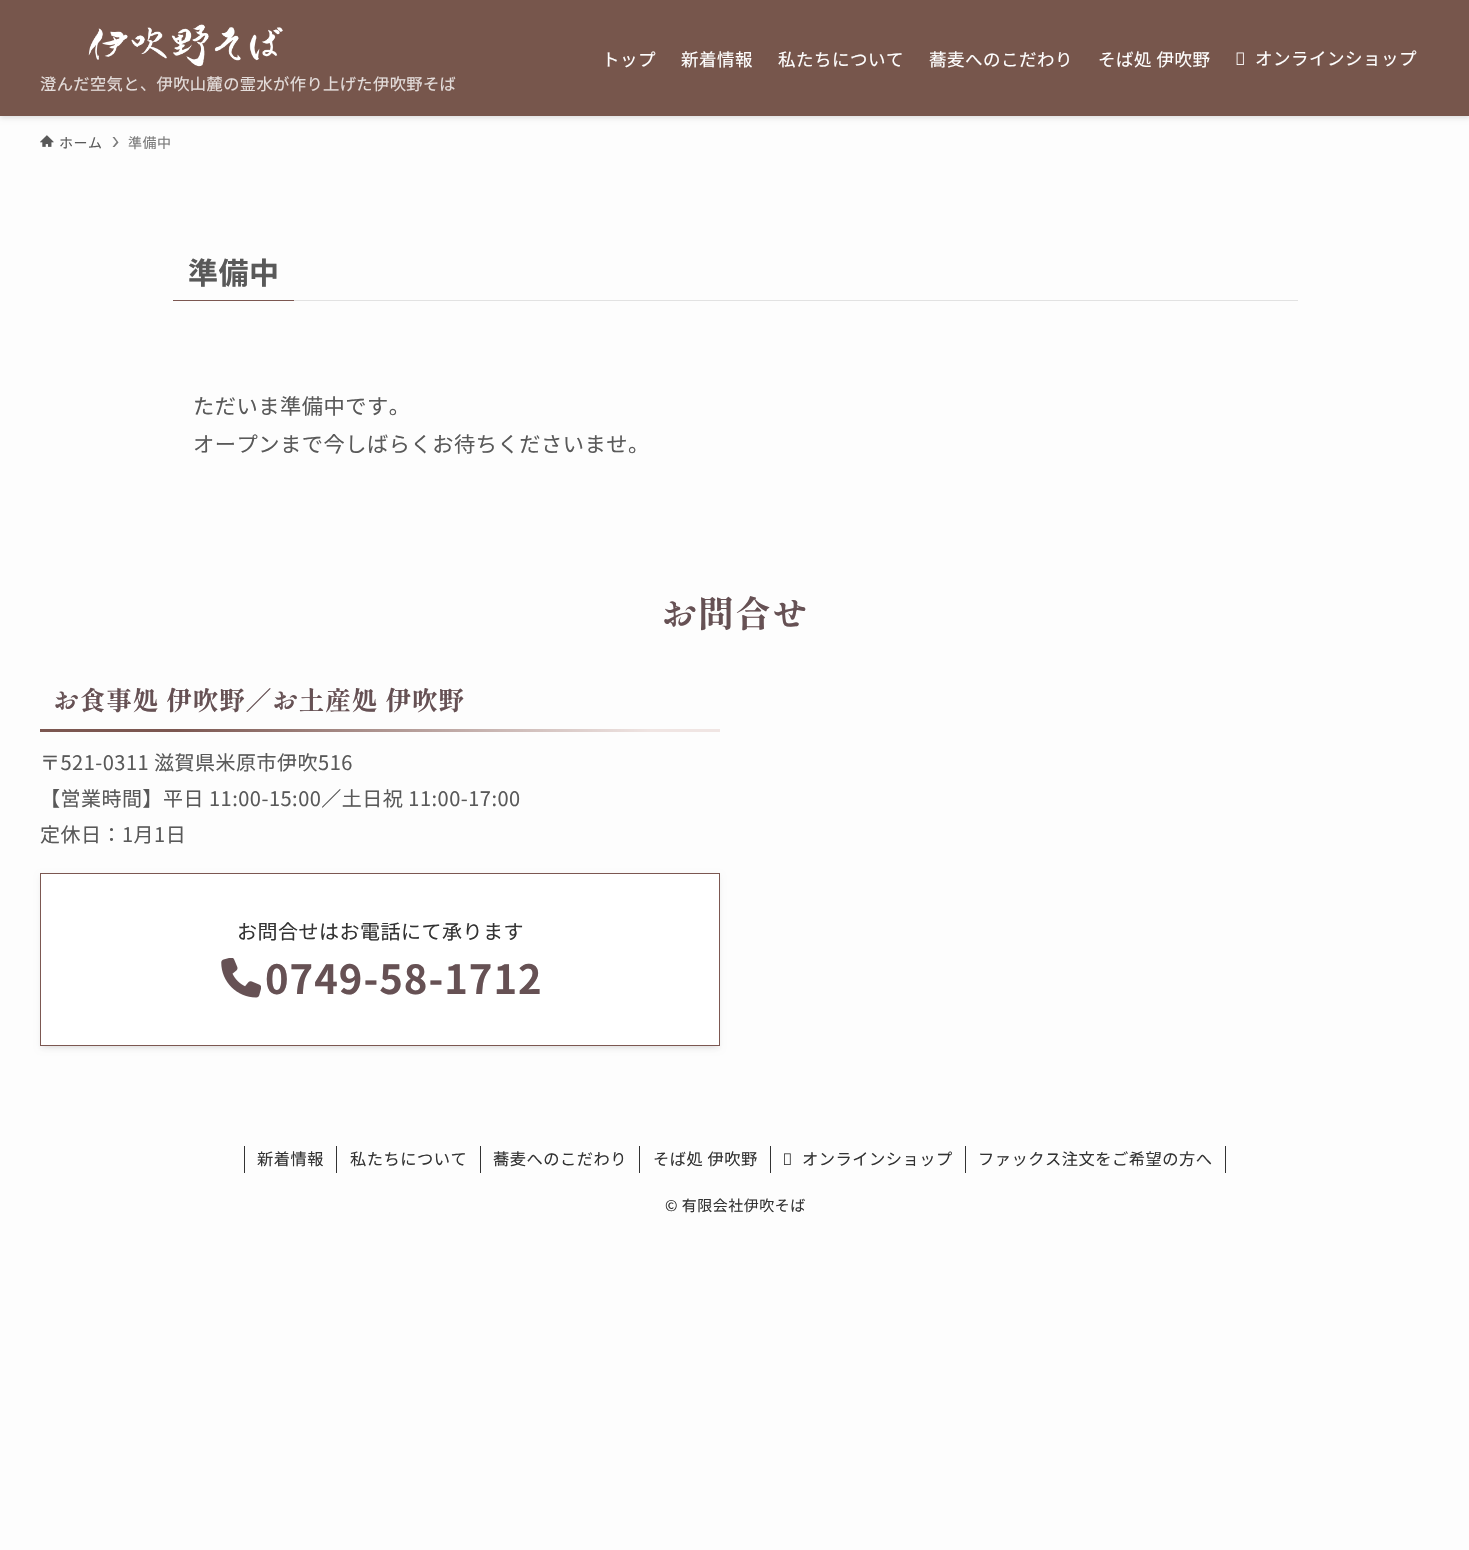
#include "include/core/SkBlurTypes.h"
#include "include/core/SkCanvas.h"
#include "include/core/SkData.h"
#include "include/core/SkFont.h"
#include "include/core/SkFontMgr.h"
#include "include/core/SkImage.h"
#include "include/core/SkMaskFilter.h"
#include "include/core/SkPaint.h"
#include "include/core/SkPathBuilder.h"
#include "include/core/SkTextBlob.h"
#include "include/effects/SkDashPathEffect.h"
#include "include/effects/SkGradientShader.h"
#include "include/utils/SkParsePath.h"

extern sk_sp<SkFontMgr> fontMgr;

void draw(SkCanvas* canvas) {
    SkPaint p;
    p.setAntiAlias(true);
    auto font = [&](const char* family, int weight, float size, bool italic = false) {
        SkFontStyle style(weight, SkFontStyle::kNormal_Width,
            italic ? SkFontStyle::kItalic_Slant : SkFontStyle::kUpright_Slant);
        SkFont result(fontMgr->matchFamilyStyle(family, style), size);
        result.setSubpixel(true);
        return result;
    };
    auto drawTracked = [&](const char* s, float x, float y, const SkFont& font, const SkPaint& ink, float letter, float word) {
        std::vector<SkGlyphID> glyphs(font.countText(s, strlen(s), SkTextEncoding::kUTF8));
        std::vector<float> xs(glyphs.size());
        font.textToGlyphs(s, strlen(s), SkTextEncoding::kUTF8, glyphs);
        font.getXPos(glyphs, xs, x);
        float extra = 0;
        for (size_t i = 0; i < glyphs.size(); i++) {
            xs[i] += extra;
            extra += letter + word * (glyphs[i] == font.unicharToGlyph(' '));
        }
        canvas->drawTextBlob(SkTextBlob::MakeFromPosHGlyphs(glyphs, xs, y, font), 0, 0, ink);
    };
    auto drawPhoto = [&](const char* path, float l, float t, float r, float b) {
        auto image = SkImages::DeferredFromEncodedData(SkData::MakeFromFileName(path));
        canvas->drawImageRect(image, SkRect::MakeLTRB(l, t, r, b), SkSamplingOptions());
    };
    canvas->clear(0xFFFDFDFD);
    p.setColor(0x1F000000);
    p.setMaskFilter(SkMaskFilter::MakeBlur(kNormal_SkBlurStyle, 2.5f));
    canvas->drawRect(SkRect::MakeLTRB(0, 1, 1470, 118), p);
    p.setMaskFilter(nullptr);
    p.setColor(0xFF77564C);
    canvas->drawRect(SkRect::MakeLTRB(0, 0, 1469, 116), p);
    auto font1 = font("Noto Sans JP", 400, 17.5f);
    p.setColor(0xFFFFFFFF);
    {
        const struct { const char* s; float x, y; } items[] = {
            {"トップ", 602, 66},
            {"新着情報", 681, 66},
            {"私たちについて", 778, 66},
            {"蕎麦へのこだわり", 929, 66},
            {"そば処 伊吹野", 1098, 66},
        };
        for (auto [s, x, y] : items) {
            drawTracked(s, x, y, font1, p, 0.5f, 0);
        }
    }
    drawPhoto("media/1.png", 1236, 52, 1244, 65);
    drawTracked("オンラインショップ", 1255, 65, font1, p, 0.5f, 0);
    drawPhoto("media/2.png", 88, 24, 283, 67);
    auto font2 = font("Noto Sans JP", 400, 16.25f);
    p.setColor(0xFFE4DDDB);
    drawTracked("澄んだ空気と、伊吹山麓の霊水が作り上げた伊吹野そば", 40, 90, font2, p, 0.4f, 0);
    drawPhoto("media/3.png", 40, 135, 54, 147);
    auto font3 = font("Noto Sans JP", 400, 14);
    p.setColor(0xFF595959);
    drawTracked("ホーム", 59, 148, font3, p, 0.5f, 0);
    p.setColor(0xFF7A7A7A);
    canvas->drawPath(SkPathBuilder().moveTo(114.5f, 137).lineTo(112.5f, 137).lineTo(116.5f, 142).lineTo(112.5f, 147).lineTo(114.5f, 147).lineTo(118.5f, 142.5f).close().detach(), p);
    drawTracked("準備中", 128, 148, font3, p, 0.5f, 0);
    p.setColor(0xFFE2E2E2);
    canvas->drawRect(SkRect::MakeLTRB(294, 300, 1298, 301), p);
    p.setColor(0xFF7C5751);
    canvas->drawRect(SkRect::MakeLTRB(173, 300, 294, 301), p);
    auto font4 = font("Noto Sans JP", 700, 30);
    p.setColor(0xFF595959);
    drawTracked("準備中", 188, 284, font4, p, 0.5f, 0);
    auto font5 = font("Noto Sans JP", 400, 21.25f);
    drawTracked("ただいま準備中です。", 193, 414, font5, p, 0.5f, 0);
    drawTracked("オープンまで今しばらくお待ちくださいませ。", 193, 452, font5, p, 0.5f, 0);
    auto font6 = font("Shippori Mincho B1", 700, 36);
    p.setColor(0xFF665154);
    drawTracked("お問合せ", 661, 627, font6, p, 1, 0);
    auto font7 = font("Shippori Mincho B1", 700, 26);
    drawTracked("お食事処 伊吹野／お土産処 伊吹野", 53, 710, font7, p, 0.5f, 0);
    {
        const SkColor colors[] = {0xFF7C5751, 0xFF7C5751, 0xFFF0E5E3, 0xFFF0E5E3};
        const float stops[] = {0, 0.2f, 0.9f, 1};
        const SkPoint ends[] = {{40, 730}, {720, 730}};
        p.setShader(SkGradientShader::MakeLinear(ends, colors, stops, 4, SkTileMode::kClamp));
        p.setAlpha(255);
    }
    canvas->drawRect(SkRect::MakeLTRB(40, 729, 720, 732), p);
    auto font8 = font("Noto Sans JP", 400, 20);
    p.setShader(nullptr);
    p.setColor(0xFF595959);
    {
        const struct { const char* s; float x, y; } items[] = {
            {"〒521-0311 滋賀県米原市伊吹516", 40, 770},
            {"【営業時間】平日 11:00-15:00／土日祝 11:00-17:00", 40, 806},
            {"定休日：1月1日", 40, 842},
        };
        for (auto [s, x, y] : items) {
            drawTracked(s, x, y, font8, p, 0.5f, 0);
        }
    }
    p.setColor(0x1A000000);
    p.setMaskFilter(SkMaskFilter::MakeBlur(kNormal_SkBlurStyle, 2.5f));
    canvas->drawRect(SkRect::MakeLTRB(45, 883, 715, 1046), p);
    p.setMaskFilter(nullptr);
    p.setColor(0x0D000000);
    p.setMaskFilter(SkMaskFilter::MakeBlur(kNormal_SkBlurStyle, 2.5f));
    canvas->drawRect(SkRect::MakeLTRB(40, 875, 720, 1049), p);
    p.setMaskFilter(nullptr);
    p.setColor(0xFFFFFFFF);
    canvas->drawRect(SkRect::MakeLTRB(40.5f, 873.5f, 719.5f, 1045.5f), p);
    p.setStyle(SkPaint::kStroke_Style);
    p.setStrokeWidth(1);
    p.setColor(0xFF7C5751);
    canvas->drawRect(SkRect::MakeLTRB(40.5f, 873.5f, 719.5f, 1045.5f), p);
    p.setStyle(SkPaint::kFill_Style);
    p.setColor(0xFF333333);
    drawTracked("お問合せはお電話にて承ります", 237, 939, font8, p, 0.5f, 0);
    drawPhoto("media/4.png", 221, 958, 261, 998);
    auto font9 = font("Noto Sans JP", 700, 40);
    p.setColor(0xFF665154);
    drawTracked("0749-58-1712", 265, 994, font9, p, 1, 0);
    p.setColor(0xFF333333);
    canvas->drawRect(SkRect::MakeLTRB(336, 1146, 337, 1173), p);
    canvas->drawRect(SkRect::MakeLTRB(244, 1146, 245, 1173), p);
    drawTracked("新着情報", 257, 1165, font2, p, 0.5f, 0);
    canvas->drawRect(SkRect::MakeLTRB(480, 1146, 481, 1173), p);
    drawTracked("私たちについて", 350, 1165, font2, p, 0.5f, 0);
    canvas->drawRect(SkRect::MakeLTRB(639, 1146, 640, 1173), p);
    drawTracked("蕎麦へのこだわり", 493, 1165, font2, p, 0.5f, 0);
    canvas->drawRect(SkRect::MakeLTRB(770, 1146, 771, 1173), p);
    drawTracked("そば処 伊吹野", 653, 1165, font2, p, 0.5f, 0);
    canvas->drawRect(SkRect::MakeLTRB(965, 1146, 966, 1173), p);
    drawPhoto("media/5.png", 784, 1153, 791, 1165);
    drawTracked("オンラインショップ", 802, 1165, font2, p, 0.5f, 0);
    canvas->drawRect(SkRect::MakeLTRB(1225, 1146, 1226, 1173), p);
    drawTracked("ファックス注文をご希望の方へ", 978, 1165, font2, p, 0.5f, 0);
    auto font10 = font("Noto Sans JP", 400, 15);
    drawTracked("© 有限会社伊吹そば", 665, 1211, font10, p, 0.5f, 0);
}
